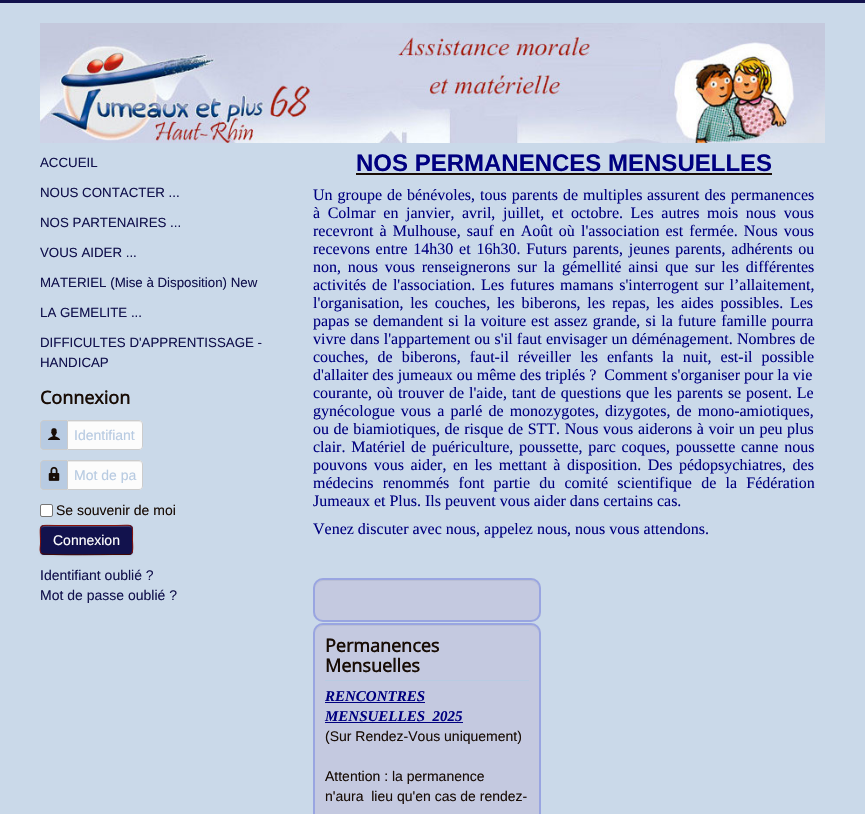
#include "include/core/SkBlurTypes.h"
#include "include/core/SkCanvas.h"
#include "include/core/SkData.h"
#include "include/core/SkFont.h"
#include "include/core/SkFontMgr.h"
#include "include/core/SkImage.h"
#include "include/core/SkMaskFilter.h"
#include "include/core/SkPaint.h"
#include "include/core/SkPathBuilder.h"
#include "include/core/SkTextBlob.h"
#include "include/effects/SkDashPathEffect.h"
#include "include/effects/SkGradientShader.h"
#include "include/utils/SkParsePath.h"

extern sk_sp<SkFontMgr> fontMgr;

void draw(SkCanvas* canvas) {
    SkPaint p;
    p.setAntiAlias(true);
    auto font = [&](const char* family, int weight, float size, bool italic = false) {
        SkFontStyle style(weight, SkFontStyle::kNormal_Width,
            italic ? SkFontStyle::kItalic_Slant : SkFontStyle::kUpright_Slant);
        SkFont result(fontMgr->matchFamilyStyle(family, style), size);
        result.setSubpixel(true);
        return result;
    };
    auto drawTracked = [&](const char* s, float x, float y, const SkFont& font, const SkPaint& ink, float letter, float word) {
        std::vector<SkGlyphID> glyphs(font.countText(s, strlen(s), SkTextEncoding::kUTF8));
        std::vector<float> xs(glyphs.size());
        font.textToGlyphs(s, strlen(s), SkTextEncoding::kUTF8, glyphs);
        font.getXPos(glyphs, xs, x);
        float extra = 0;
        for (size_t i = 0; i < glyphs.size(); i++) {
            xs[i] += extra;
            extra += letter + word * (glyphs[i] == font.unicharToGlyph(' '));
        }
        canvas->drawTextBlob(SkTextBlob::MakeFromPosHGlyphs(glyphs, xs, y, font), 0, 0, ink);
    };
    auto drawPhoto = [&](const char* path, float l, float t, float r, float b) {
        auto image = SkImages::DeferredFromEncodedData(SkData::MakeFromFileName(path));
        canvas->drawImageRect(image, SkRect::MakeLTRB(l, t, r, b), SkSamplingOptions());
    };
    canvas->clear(0xFFCAD9E9);
    p.setColor(0xFF12124D);
    canvas->drawRect(SkRect::MakeLTRB(0, 0, 865, 3), p);
    drawPhoto("media/1.png", 40, 23, 825, 143);
    auto font1 = font("Liberation Sans", 400, 13.3f);
    {
        const struct { const char* s; float x, y; } items[] = {
            {"ACCUEIL", 40, 167},
            {"NOUS CONTACTER ...", 40, 197},
            {"NOS PARTENAIRES ...", 40, 227},
            {"VOUS AIDER ...", 40, 257},
            {"MATERIEL (Mise à Disposition) New", 40, 287},
            {"LA GEMELITE ...", 40, 317},
            {"DIFFICULTES D'APPRENTISSAGE -", 40, 347},
            {"HANDICAP", 40, 367},
        };
        for (auto [s, x, y] : items) {
            canvas->drawString(s, x, y, font1, p);
        }
    }
    auto font2 = font("Open Sans", 700, 18);
    p.setColor(0xFF180C05);
    canvas->drawString("Connexion", 40, 404, font2, p);
    p.setColor(0xFFB8CBE2);
    canvas->drawPath(SkPathBuilder().moveTo(44, 420.5f).lineTo(67.5f, 420.5f).lineTo(67.5f, 449.5f).lineTo(44, 449.5f).cubicTo(42, 449.5f, 40.5f, 448, 40.5f, 446).lineTo(40.5f, 424).cubicTo(40.5f, 422, 42, 420.5f, 44, 420.5f).close().detach(), p);
    p.setStyle(SkPaint::kStroke_Style);
    p.setStrokeWidth(1);
    p.setColor(0xFFCCCCCC);
    canvas->drawPath(SkPathBuilder().moveTo(44, 420.5f).lineTo(67.5f, 420.5f).lineTo(67.5f, 449.5f).lineTo(44, 449.5f).cubicTo(42, 449.5f, 40.5f, 448, 40.5f, 446).lineTo(40.5f, 424).cubicTo(40.5f, 422, 42, 420.5f, 44, 420.5f).close().detach(), p);
    drawPhoto("media/2.png", 47, 428, 61, 440);
    p.setStyle(SkPaint::kFill_Style);
    p.setColor(0xFFFCFCFC);
    canvas->drawPath(SkPathBuilder().moveTo(67, 420).lineTo(139, 420).cubicTo(141, 420, 143, 422, 143, 424).lineTo(143, 446).cubicTo(143, 448, 141, 450, 139, 450).lineTo(67, 450).close().detach(), p);
    p.setColor(0xFFE9E9E9);
    canvas->drawPath(SkPathBuilder().moveTo(68, 422).lineTo(139, 422).cubicTo(141, 422, 142, 423, 142, 425).lineTo(142, 424).cubicTo(142, 422, 141, 421, 139, 421).lineTo(68, 421).close().detach(), p);
    p.setStyle(SkPaint::kStroke_Style);
    p.setColor(0xFFCCCCCC);
    canvas->drawPath(SkPathBuilder().moveTo(67.5f, 420.5f).lineTo(139, 420.5f).cubicTo(141, 420.5f, 142.5f, 422, 142.5f, 424).lineTo(142.5f, 446).cubicTo(142.5f, 448, 141, 449.5f, 139, 449.5f).lineTo(67.5f, 449.5f).close().detach(), p);
    auto font3 = font("Liberation Sans", 400, 14);
    p.setStyle(SkPaint::kFill_Style);
    p.setColor(0xFFB8CBE2);
    canvas->drawString("Identifiant", 74, 440, font3, p);
    canvas->drawPath(SkPathBuilder().moveTo(44, 460.5f).lineTo(67.5f, 460.5f).lineTo(67.5f, 489.5f).lineTo(44, 489.5f).cubicTo(42, 489.5f, 40.5f, 488, 40.5f, 486).lineTo(40.5f, 464).cubicTo(40.5f, 462, 42, 460.5f, 44, 460.5f).close().detach(), p);
    p.setStyle(SkPaint::kStroke_Style);
    p.setColor(0xFFCCCCCC);
    canvas->drawPath(SkPathBuilder().moveTo(44, 460.5f).lineTo(67.5f, 460.5f).lineTo(67.5f, 489.5f).lineTo(44, 489.5f).cubicTo(42, 489.5f, 40.5f, 488, 40.5f, 486).lineTo(40.5f, 464).cubicTo(40.5f, 462, 42, 460.5f, 44, 460.5f).close().detach(), p);
    drawPhoto("media/3.png", 48, 466, 60, 481);
    p.setStyle(SkPaint::kFill_Style);
    p.setColor(0xFFFCFCFC);
    canvas->drawPath(SkPathBuilder().moveTo(67, 460).lineTo(139, 460).cubicTo(141, 460, 143, 462, 143, 464).lineTo(143, 486).cubicTo(143, 488, 141, 490, 139, 490).lineTo(67, 490).close().detach(), p);
    p.setColor(0xFFE9E9E9);
    canvas->drawPath(SkPathBuilder().moveTo(68, 462).lineTo(139, 462).cubicTo(141, 462, 142, 463, 142, 465).lineTo(142, 464).cubicTo(142, 462, 141, 461, 139, 461).lineTo(68, 461).close().detach(), p);
    p.setStyle(SkPaint::kStroke_Style);
    p.setColor(0xFFCCCCCC);
    canvas->drawPath(SkPathBuilder().moveTo(67.5f, 460.5f).lineTo(139, 460.5f).cubicTo(141, 460.5f, 142.5f, 462, 142.5f, 464).lineTo(142.5f, 486).cubicTo(142.5f, 488, 141, 489.5f, 139, 489.5f).lineTo(67.5f, 489.5f).close().detach(), p);
    p.setStyle(SkPaint::kFill_Style);
    p.setColor(0xFFB8CBE2);
    canvas->drawString("Mot de pa", 74, 480, font3, p);
    p.setColor(0xFFFFFFFF);
    canvas->drawRoundRect(SkRect::MakeLTRB(40.5f, 504.5f, 52.5f, 516.5f), 1.5f, 1.5f, p);
    p.setStyle(SkPaint::kStroke_Style);
    p.setColor(0xFF767676);
    canvas->drawRoundRect(SkRect::MakeLTRB(40.5f, 504.5f, 52.5f, 516.5f), 1.5f, 1.5f, p);
    p.setStyle(SkPaint::kFill_Style);
    p.setColor(0xFF180C05);
    canvas->drawString("Se souvenir de moi", 56, 515, font3, p);
    p.setColor(0x0D000000);
    p.setMaskFilter(SkMaskFilter::MakeBlur(kNormal_SkBlurStyle, 1));
    canvas->drawRoundRect(SkRect::MakeLTRB(40, 526, 133, 556), 4, 4, p);
    p.setMaskFilter(nullptr);
    p.setColor(0xFF12124D);
    canvas->drawRoundRect(SkRect::MakeLTRB(40, 525, 133, 555), 4, 4, p);
    p.setColor(0xFF414171);
    canvas->drawPath(SkPathBuilder().moveTo(44, 527).lineTo(129, 527).cubicTo(131, 527, 132, 528, 132, 530).cubicTo(132, 522, 118, 526, 115, 526).lineTo(58, 526).cubicTo(55, 526, 41, 522, 41, 530).cubicTo(41, 528, 42, 527, 44, 527).close().detach(), p);
    p.setStyle(SkPaint::kStroke_Style);
    p.setColor(0xFF420904);
    canvas->drawPath(SkPathBuilder().moveTo(131.5f, 553.5f).lineTo(129, 554.5f).lineTo(115, 554.5f).cubicTo(106.5f, 554.5f, 44, 555.5f, 42, 553.5f).lineTo(41.5f, 553.5f).detach(), p);
    p.setColor(0xFF8B1208);
    canvas->drawPath(SkPathBuilder().moveTo(41.5f, 553.5f).cubicTo(39, 551, 40.5f, 546.5f, 40.5f, 543.5f).cubicTo(40.5f, 522.5f, 36.5f, 525.5f, 58, 525.5f).lineTo(115, 525.5f).cubicTo(134.5f, 525.5f, 132.5f, 522, 132.5f, 540).cubicTo(132.5f, 543, 133.5f, 551.5f, 131.5f, 553.5f).detach(), p);
    p.setStyle(SkPaint::kFill_Style);
    p.setColor(0xFFFFFFFF);
    canvas->drawString("Connexion", 53, 545, font3, p);
    p.setColor(0xFF12124D);
    canvas->drawString("Identifiant oublié ?", 40, 580, font3, p);
    canvas->drawString("Mot de passe oublié ?", 40, 600, font3, p);
    auto font4 = font("Liberation Sans", 700, 24);
    p.setColor(0xFF000080);
    canvas->drawString("NOS PERMANENCES MENSUELLES", 356, 171, font4, p);
    p.setColor(0xFF180C05);
    canvas->drawRect(SkRect::MakeLTRB(356, 173, 772, 175), p);
    auto font5 = font("Liberation Serif", 400, 16);
    p.setColor(0xFF000080);
    drawTracked("Un groupe de bénévoles, tous parents de multiples", 313, 200, font5, p, 0, 1);
    drawTracked("assurent des permanences", 647, 200, font5, p, 0, 1);
    drawTracked("à Colmar en janvier, avril, juillet, et octobre. Les autres mois nous vous", 313, 218, font5, p, 0, 3.6f);
    drawTracked("recevront à Mulhouse, sauf en Août où l'association est fermée. Nous vous", 313, 236, font5, p, 0, 2.1f);
    drawTracked("recevons entre 14h30 et 16h30. Futurs parents, jeunes parents, adhérents ou", 313, 254, font5, p, 0, 1.75f);
    drawTracked("non, nous vous renseignerons sur la gémellité ainsi que sur les différentes", 313, 272, font5, p, 0, 2.75f);
    drawTracked("activités de l'association. Les futures mamans s'interrogent sur l’allaitement,", 313, 290, font5, p, 0, 1.75f);
    drawTracked("l'organisation, les couches, les biberons, les repas, les aides possibles. Les", 313, 308, font5, p, 0, 2.75f);
    drawTracked("papas se demandent si la voiture est assez grande, si la future famille pourra", 313, 326, font5, p, 0, 1.1f);
    drawTracked("vivre dans l'appartement ou s'il faut envisager un déménagement. Nombres de", 313, 344, font5, p, 0, 0.25f);
    drawTracked("couches, de biberons, faut-il réveiller les enfants la nuit, est-il possible", 313, 362, font5, p, 0, 5);
    canvas->drawString("d'allaiter des jumeaux ou même des triplés ?  Comment s'organiser pour la vie", 313, 380, font5, p);
    drawTracked("courante, où trouver de l'aide, tant de questions que les parents se posent. Le", 313, 398, font5, p, 0, 0.9f);
    drawTracked("gynécologue vous a parlé de monozygotes, dizygotes, de mono-amiotiques,", 313, 416, font5, p, 0, 2.1f);
    drawTracked("ou de biamiotiques, de risque de STT. Nous vous aiderons à voir un peu plus", 313, 434, font5, p, 0, 0.6f);
    drawTracked("clair. Matériel de puériculture, poussette, parc coques, poussette canne nous", 313, 452, font5, p, 0, 1.75f);
    drawTracked("pouvons vous aider, en les mettant à disposition. Des pédopsychiatres, des", 313, 470, font5, p, 0, 2.5f);
    drawTracked("médecins renommés font partie du comité scientifique de la Fédération", 313, 488, font5, p, 0, 5.25f);
    canvas->drawString("Jumeaux et Plus. Ils peuvent vous aider dans certains cas.", 313, 506, font5, p);
    canvas->drawString("Venez discuter avec nous, appelez nous, nous vous attendons.", 313, 534, font5, p);
    p.setColor(0xFFC4C9E0);
    canvas->drawRoundRect(SkRect::MakeLTRB(313, 578, 541, 622), 10, 10, p);
    p.setColor(0xFFBABFD5);
    canvas->drawPath(SkPathBuilder().moveTo(323, 581).lineTo(531, 581).cubicTo(535, 581, 539, 585, 539, 589).lineTo(539, 588).cubicTo(539, 584, 535, 580, 531, 580).lineTo(323, 580).cubicTo(319, 580, 315, 584, 315, 588).lineTo(315, 589).cubicTo(315, 585, 319, 581, 323, 581).close().detach(), p);
    p.setStyle(SkPaint::kStroke_Style);
    p.setStrokeWidth(2);
    p.setColor(0xFF99A5E1);
    canvas->drawRoundRect(SkRect::MakeLTRB(314, 579, 540, 621), 9, 9, p);
    p.setStyle(SkPaint::kFill_Style);
    p.setColor(0xFFC4C9E0);
    canvas->drawRoundRect(SkRect::MakeLTRB(313, 623, 541, 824), 10, 10, p);
    p.setColor(0xFFBABFD5);
    canvas->drawPath(SkPathBuilder().moveTo(323, 626).lineTo(531, 626).cubicTo(535, 626, 539, 630, 539, 634).lineTo(539, 633).cubicTo(539, 629, 535, 625, 531, 625).lineTo(323, 625).cubicTo(319, 625, 315, 629, 315, 633).lineTo(315, 634).cubicTo(315, 630, 319, 626, 323, 626).close().detach(), p);
    p.setStyle(SkPaint::kStroke_Style);
    p.setColor(0xFF99A5E1);
    canvas->drawRoundRect(SkRect::MakeLTRB(314, 624, 540, 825), 9, 9, p);
    p.setStyle(SkPaint::kFill_Style);
    p.setColor(0xFFB8CBE2);
    canvas->drawRect(SkRect::MakeLTRB(325, 680, 529, 681), p);
    p.setColor(0xFF180C05);
    canvas->drawString("Permanences", 325, 652, font2, p);
    canvas->drawString("Mensuelles", 325, 672, font2, p);
    auto font6 = font("Liberation Serif", 700, 15, true);
    p.setColor(0xFF000080);
    canvas->drawString("RENCONTRES", 325, 701, font6, p);
    canvas->drawRect(SkRect::MakeLTRB(325, 702, 425, 703), p);
    canvas->drawString("MENSUELLES  2025", 325, 721, font6, p);
    canvas->drawRect(SkRect::MakeLTRB(325, 722, 463, 723), p);
    p.setColor(0xFF180C05);
    {
        const struct { const char* s; float x, y; } items[] = {
            {"(Sur Rendez-Vous uniquement)", 325, 741},
            {"Attention : la permanence", 325, 781},
            {"n'aura  lieu qu'en cas de rendez-", 325, 801},
        };
        for (auto [s, x, y] : items) {
            canvas->drawString(s, x, y, font3, p);
        }
    }
}
